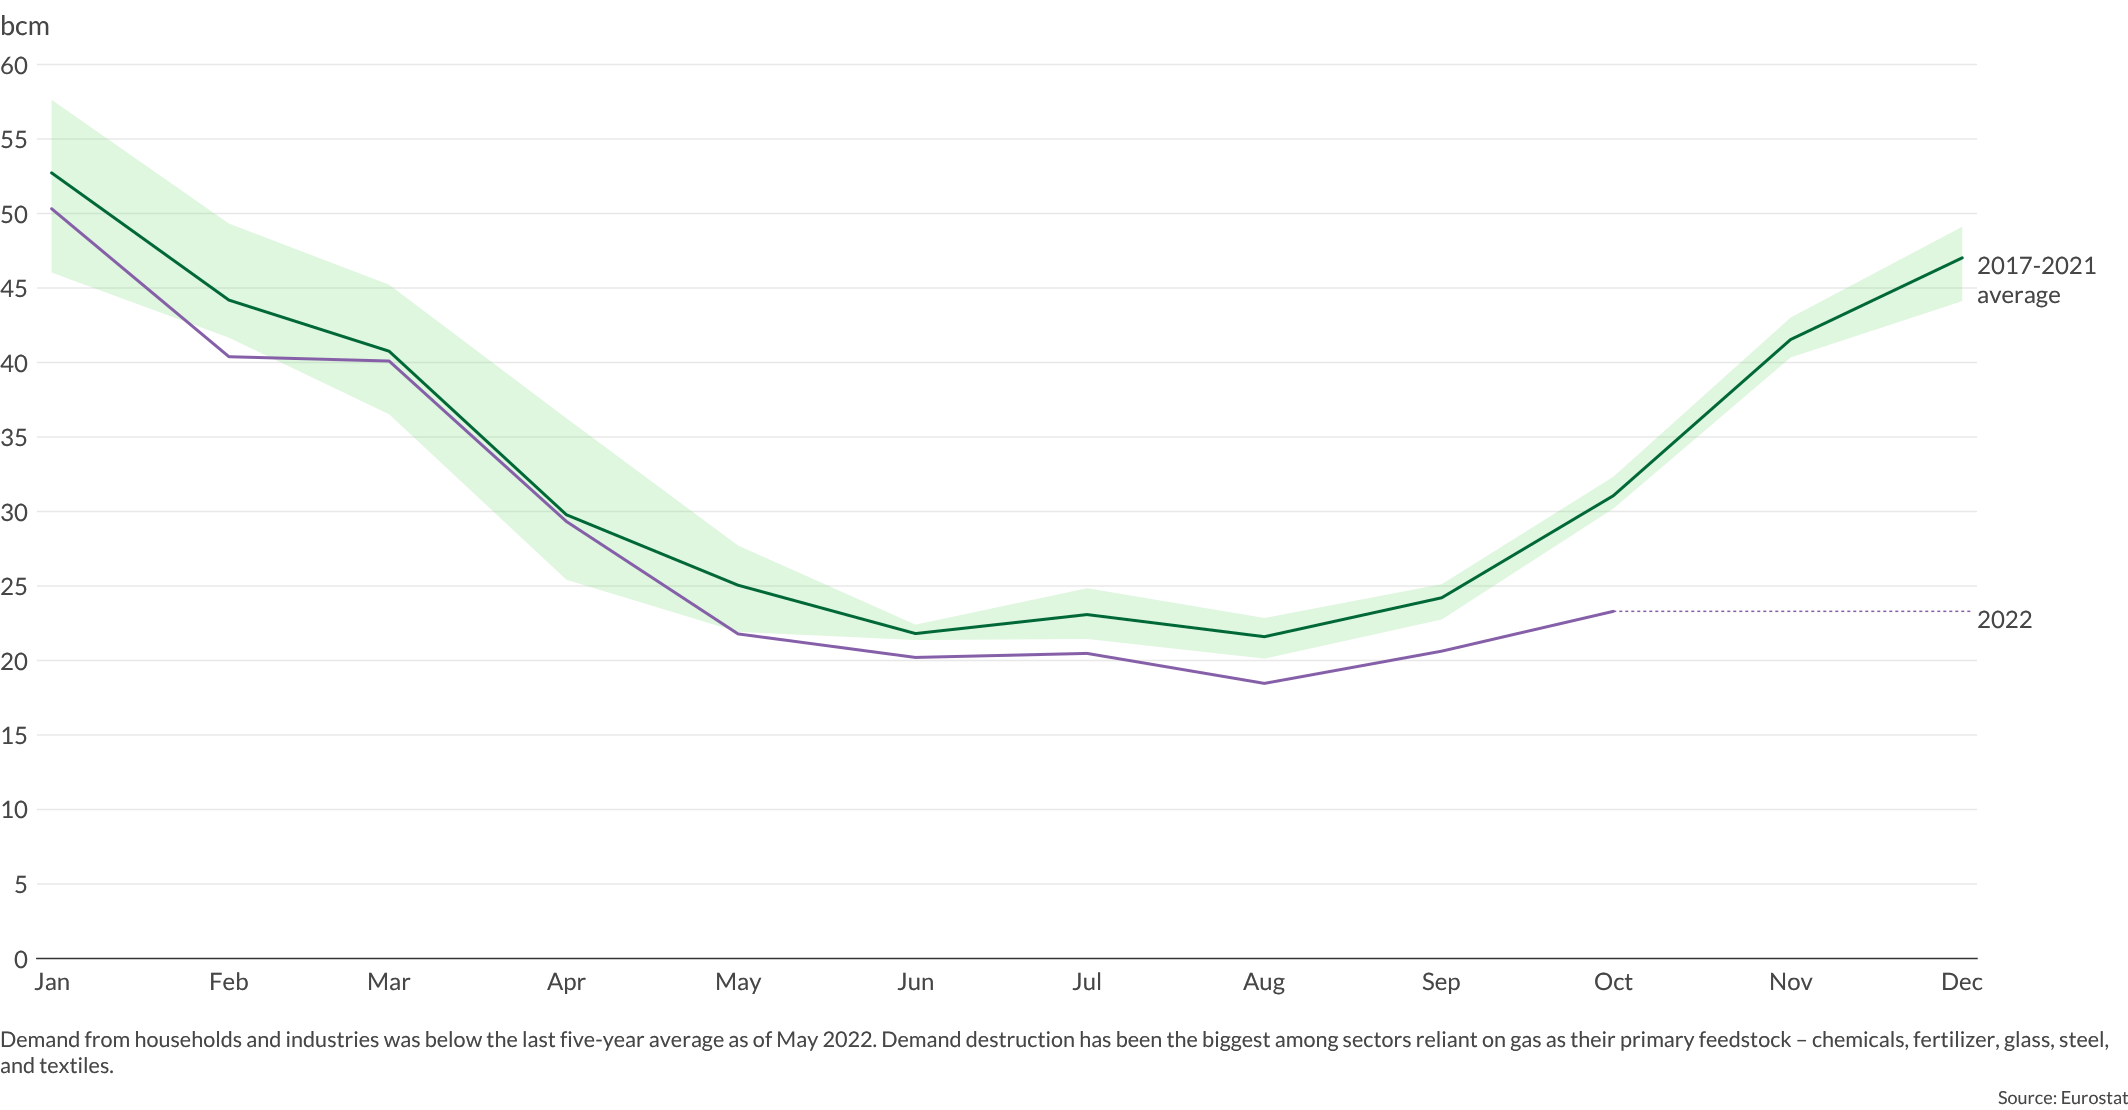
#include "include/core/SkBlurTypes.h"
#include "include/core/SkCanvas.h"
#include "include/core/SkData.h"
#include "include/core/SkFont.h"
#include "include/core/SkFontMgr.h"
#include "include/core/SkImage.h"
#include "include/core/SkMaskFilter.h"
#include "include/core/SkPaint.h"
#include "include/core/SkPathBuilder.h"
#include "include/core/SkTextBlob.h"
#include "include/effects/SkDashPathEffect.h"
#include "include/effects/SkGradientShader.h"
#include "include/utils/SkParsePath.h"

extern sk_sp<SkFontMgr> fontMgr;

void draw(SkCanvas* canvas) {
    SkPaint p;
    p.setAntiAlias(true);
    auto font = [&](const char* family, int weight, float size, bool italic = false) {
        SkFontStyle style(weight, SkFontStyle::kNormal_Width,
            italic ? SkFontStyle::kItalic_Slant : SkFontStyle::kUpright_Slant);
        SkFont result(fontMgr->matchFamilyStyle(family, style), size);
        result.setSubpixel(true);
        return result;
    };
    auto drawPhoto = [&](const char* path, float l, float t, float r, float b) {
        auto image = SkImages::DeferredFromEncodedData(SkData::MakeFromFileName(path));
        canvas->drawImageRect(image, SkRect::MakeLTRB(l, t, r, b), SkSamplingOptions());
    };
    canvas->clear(0xFFFFFFFF);
    auto font1 = font("Lato", 400, 27);
    p.setColor(0xFF464646);
    canvas->drawString("bcm", 0, 35, font1, p);
    drawPhoto("media/1.png", 36, 63, 1978, 960);
    auto font2 = font("Lato", 400, 24);
    {
        const struct { const char* s; float x, y; } items[] = {
            {"60", 0, 74},
            {"55", 0, 148},
            {"50", 0, 223},
            {"45", 0, 297},
            {"40", 0, 372},
            {"35", 0, 446},
            {"30", 0, 521},
            {"25", 0, 595},
            {"20", 0, 670},
            {"15", 0, 744},
            {"10", 0, 818},
            {"5", 14, 893},
            {"0", 14, 968},
            {"Jan", 34, 990},
            {"Feb", 209, 990},
            {"Mar", 367, 990},
            {"Apr", 547, 990},
            {"May", 715, 990},
            {"Jun", 897, 990},
            {"Jul", 1072, 990},
            {"Aug", 1243, 990},
            {"Sep", 1422, 990},
            {"Oct", 1594, 990},
            {"Nov", 1769, 990},
            {"Dec", 1941, 990},
            {"2017-2021", 1977, 274},
            {"average", 1977, 303},
            {"2022", 1977, 628},
        };
        for (auto [s, x, y] : items) {
            canvas->drawString(s, x, y, font2, p);
        }
    }
    auto font3 = font("Lato", 400, 21.6f);
    canvas->drawString("Demand from households and industries was below the last five-year average as of May 2022. Demand destruction has been the biggest among sectors reliant on gas as their primary feedstock – chemicals, fertilizer, glass, steel,", 0, 1047, font3, p);
    canvas->drawString("and textiles.", 0, 1073, font3, p);
    auto font4 = font("Lato", 400, 18);
    canvas->drawString("Source: Eurostat", 1998, 1104, font4, p);
}
